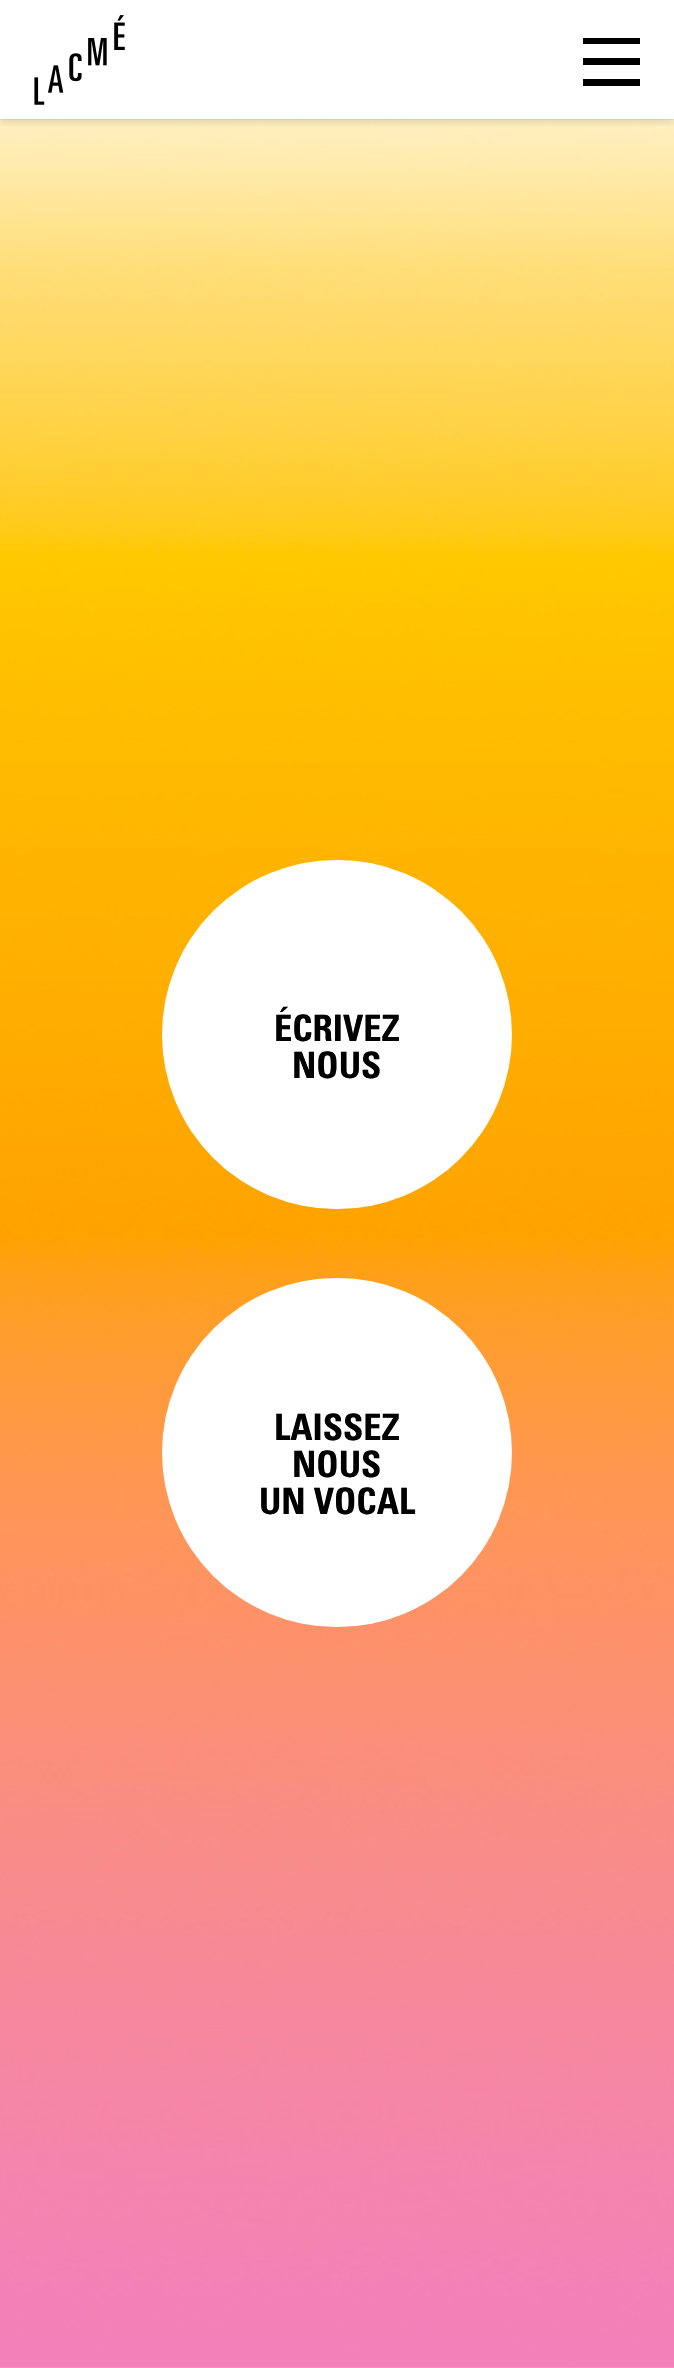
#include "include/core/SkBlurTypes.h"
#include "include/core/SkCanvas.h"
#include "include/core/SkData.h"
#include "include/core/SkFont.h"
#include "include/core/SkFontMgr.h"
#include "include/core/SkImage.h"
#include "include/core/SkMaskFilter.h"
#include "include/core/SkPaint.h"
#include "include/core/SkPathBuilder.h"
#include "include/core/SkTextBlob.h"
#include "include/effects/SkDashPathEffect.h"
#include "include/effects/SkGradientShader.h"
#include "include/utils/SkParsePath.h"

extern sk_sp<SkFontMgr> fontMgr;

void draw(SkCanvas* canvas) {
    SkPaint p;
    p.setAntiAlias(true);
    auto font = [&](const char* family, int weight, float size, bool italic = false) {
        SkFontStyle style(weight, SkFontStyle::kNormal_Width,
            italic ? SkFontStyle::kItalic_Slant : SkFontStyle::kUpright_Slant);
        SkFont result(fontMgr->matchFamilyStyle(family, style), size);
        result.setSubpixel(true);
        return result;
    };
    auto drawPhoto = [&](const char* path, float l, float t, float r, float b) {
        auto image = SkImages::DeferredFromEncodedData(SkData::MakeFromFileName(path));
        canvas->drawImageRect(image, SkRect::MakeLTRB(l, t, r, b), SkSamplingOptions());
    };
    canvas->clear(0xFFFFFFFF);
    drawPhoto("media/2.png", 0, 119, 674, 2368);
    canvas->save();
    canvas->clipRect(SkRect::MakeLTRB(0, 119, 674, 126));
    p.setColor(0x1A000000);
    p.setMaskFilter(SkMaskFilter::MakeBlur(kNormal_SkBlurStyle, 3.5f));
    canvas->drawRect(SkRect::MakeLTRB(0, 4, 674, 123), p);
    p.setMaskFilter(nullptr);
    canvas->restore();
    drawPhoto("media/1.png", 34, 15, 125, 105);
    {
        const struct { float l, t, r, b; SkColor color; } items[] = {
            {583, 38, 640, 44, 0xFF000000},
            {583, 58, 640, 65, 0xFF000000},
            {583, 79, 640, 86, 0xFF000000},
        };
        for (auto [l, t, r, b, color] : items) {
            p.setColor(color);
            canvas->drawRect(SkRect::MakeLTRB(l, t, r, b), p);
        }
    }
    p.setColor(0xFFFFFFFF);
    canvas->drawRoundRect(SkRect::MakeLTRB(162, 860, 512, 1209), 174.5f, 174.5f, p);
    auto font1 = font("Univers", 700, 36.5f);
    p.setColor(0xFF000000);
    canvas->drawString("ÉCRIVEZ", 274, 1041, font1, p);
    canvas->drawString("NOUS", 292, 1078, font1, p);
    p.setColor(0xFFFFFFFF);
    canvas->drawRoundRect(SkRect::MakeLTRB(162, 1278, 512, 1627), 174.5f, 174.5f, p);
    p.setColor(0xFF000000);
    {
        const struct { const char* s; float x, y; } items[] = {
            {"LAISSEZ", 274, 1440},
            {"NOUS", 292, 1477},
            {"UN VOCAL", 259, 1514},
        };
        for (auto [s, x, y] : items) {
            canvas->drawString(s, x, y, font1, p);
        }
    }
}
